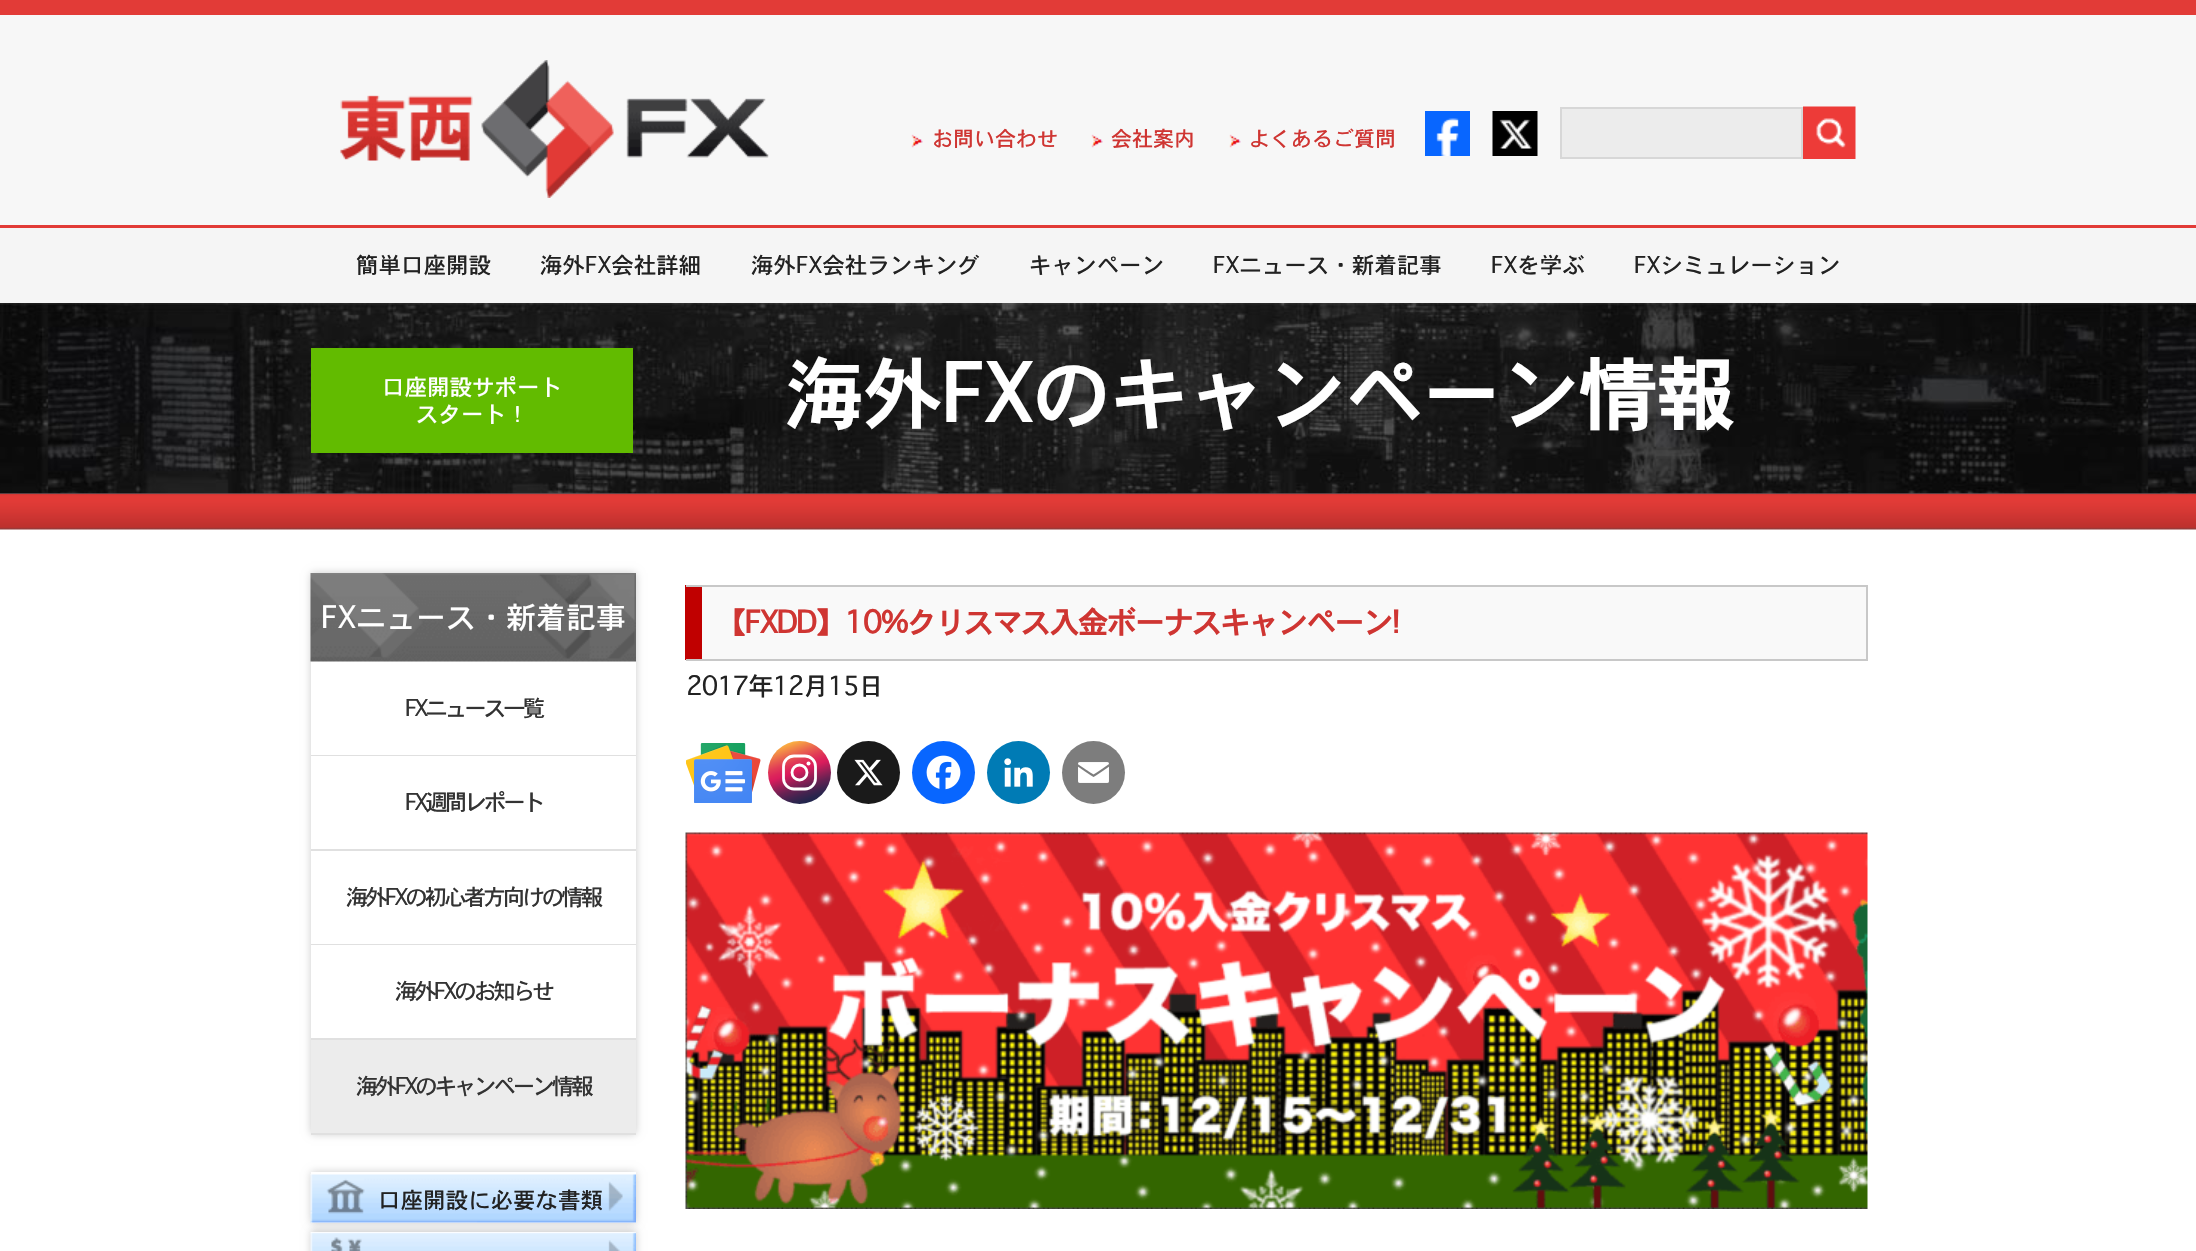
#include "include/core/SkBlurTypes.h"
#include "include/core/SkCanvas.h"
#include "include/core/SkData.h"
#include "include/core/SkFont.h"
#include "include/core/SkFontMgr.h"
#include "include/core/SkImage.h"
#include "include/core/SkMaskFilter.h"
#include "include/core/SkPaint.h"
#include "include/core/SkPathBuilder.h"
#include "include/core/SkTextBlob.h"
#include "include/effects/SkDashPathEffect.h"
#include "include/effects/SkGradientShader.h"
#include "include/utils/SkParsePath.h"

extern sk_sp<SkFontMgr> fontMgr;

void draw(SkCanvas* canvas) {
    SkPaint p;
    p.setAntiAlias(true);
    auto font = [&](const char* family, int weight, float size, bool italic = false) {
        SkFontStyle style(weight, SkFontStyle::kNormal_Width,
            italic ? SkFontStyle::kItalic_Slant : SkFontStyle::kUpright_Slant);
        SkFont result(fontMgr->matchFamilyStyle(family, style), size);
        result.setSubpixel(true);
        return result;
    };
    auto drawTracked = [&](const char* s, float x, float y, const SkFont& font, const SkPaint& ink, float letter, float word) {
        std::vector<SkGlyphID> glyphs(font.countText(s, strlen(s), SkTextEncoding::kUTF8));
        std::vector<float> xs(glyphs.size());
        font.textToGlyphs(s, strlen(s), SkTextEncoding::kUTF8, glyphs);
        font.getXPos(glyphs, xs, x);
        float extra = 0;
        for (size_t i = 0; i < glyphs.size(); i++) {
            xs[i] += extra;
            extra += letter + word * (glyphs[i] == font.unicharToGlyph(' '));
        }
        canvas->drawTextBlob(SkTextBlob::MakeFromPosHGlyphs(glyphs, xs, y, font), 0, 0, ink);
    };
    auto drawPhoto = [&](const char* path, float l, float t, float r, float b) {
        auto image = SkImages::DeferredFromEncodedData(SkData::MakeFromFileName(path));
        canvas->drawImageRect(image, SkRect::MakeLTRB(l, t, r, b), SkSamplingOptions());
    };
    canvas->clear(0xFFFFFFFF);
    p.setColor(0xFFF7F7F7);
    canvas->drawRect(SkRect::MakeLTRB(0, 15, 2196, 225), p);
    p.setColor(0xFFE23B37);
    canvas->drawRect(SkRect::MakeLTRB(0, 0, 2196, 15), p);
    drawPhoto("media/1.png", 340, 60, 769, 198);
    drawPhoto("media/2.png", 911, 134, 923, 148);
    auto font1 = font("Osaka", 400, 21);
    p.setColor(0xFFCF3532);
    canvas->drawString("お問い合わせ", 932, 146, font1, p);
    drawPhoto("media/2.png", 1091, 134, 1103, 148);
    canvas->drawString("会社案内", 1111, 146, font1, p);
    drawPhoto("media/2.png", 1229, 134, 1241, 148);
    canvas->drawString("よくあるご質問", 1249, 146, font1, p);
    drawPhoto("media/3.png", 1425, 111, 1470, 156);
    drawPhoto("media/4.png", 1492, 111, 1538, 156);
    p.setColor(0xFFECECEC);
    canvas->drawRect(SkRect::MakeLTRB(1561, 108, 1802, 158), p);
    p.setStyle(SkPaint::kStroke_Style);
    p.setStrokeWidth(2);
    p.setColor(0xFFD7D7D7);
    canvas->drawRect(SkRect::MakeLTRB(1561, 108, 1802, 158), p);
    drawPhoto("media/5.png", 1803, 106, 1856, 159);
    p.setStyle(SkPaint::kFill_Style);
    p.setColor(0xFFF5F5F5);
    canvas->drawRect(SkRect::MakeLTRB(0, 228, 2196, 303), p);
    p.setColor(0xFFE23B37);
    canvas->drawRect(SkRect::MakeLTRB(0, 225, 2196, 228), p);
    auto font2 = font("Osaka", 400, 22.5f);
    p.setColor(0xFF222222);
    {
        const struct { const char* s; float x, y; } items[] = {
            {"簡単口座開設", 356, 273},
            {"海外FX会社詳細", 540, 273},
            {"海外FX会社ランキング", 751, 273},
            {"キャンペーン", 1029, 273},
            {"FXニュース・新着記事", 1213, 273},
            {"FXを学ぶ", 1491, 273},
            {"FXシミュレーション", 1634, 273},
        };
        for (auto [s, x, y] : items) {
            canvas->drawString(s, x, y, font2, p);
        }
    }
    drawPhoto("media/8.png", 0, 493, 2196, 530);
    drawPhoto("media/6.png", 0, 493, 2196, 494);
    drawPhoto("media/7.png", 0, 303, 2196, 494);
    p.setColor(0xFF62BB00);
    canvas->drawRect(SkRect::MakeLTRB(311, 348, 633, 453), p);
    p.setColor(0xFFFFFFFF);
    canvas->drawString("口座開設サポート", 382, 395, font2, p);
    canvas->drawString("スタート！", 416, 422, font2, p);
    auto font3 = font("Osaka", 700, 78);
    canvas->drawString("海外FXのキャンペーン情報", 785, 422, font3, p);
    canvas->save();
    canvas->clipPath(SkPathBuilder(SkPathFillType::kEvenOdd).moveTo(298, 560).lineTo(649, 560).lineTo(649, 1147).lineTo(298, 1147).close().moveTo(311, 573).lineTo(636, 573).lineTo(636, 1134).lineTo(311, 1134).close().detach(), true);
    p.setColor(0x33000000);
    p.setMaskFilter(SkMaskFilter::MakeBlur(kNormal_SkBlurStyle, 4));
    canvas->drawRect(SkRect::MakeLTRB(311, 573, 636, 1134), p);
    p.setMaskFilter(nullptr);
    canvas->restore();
    drawPhoto("media/9.png", 310, 573, 636, 662);
    auto font4 = font("Osaka", 400, 30);
    p.setColor(0xFFFFFFFF);
    canvas->drawString("FXニュース・新着記事", 321, 628, font4, p);
    p.setColor(0xFFE0E0E0);
    canvas->drawRect(SkRect::MakeLTRB(311, 755, 636, 756), p);
    p.setColor(0xFF333333);
    drawTracked("FXニュース一覧", 405, 716, font2, p, -3, 0);
    p.setColor(0xFFE0E0E0);
    canvas->drawRect(SkRect::MakeLTRB(311, 849, 636, 851), p);
    p.setColor(0xFF333333);
    drawTracked("FX週間レポート", 405, 810, font2, p, -3, 0);
    p.setColor(0xFFE0E0E0);
    canvas->drawRect(SkRect::MakeLTRB(311, 944, 636, 945), p);
    p.setColor(0xFF333333);
    drawTracked("海外FXの初心者方向けの情報", 346, 905, font2, p, -3, 0);
    p.setColor(0xFFE0E0E0);
    canvas->drawRect(SkRect::MakeLTRB(311, 1038, 636, 1040), p);
    p.setColor(0xFF333333);
    drawTracked("海外FXのお知らせ", 395, 999, font2, p, -3, 0);
    p.setColor(0xFFE0E0E0);
    canvas->drawRect(SkRect::MakeLTRB(311, 1133, 636, 1135), p);
    p.setColor(0xFFECECEC);
    canvas->drawRect(SkRect::MakeLTRB(311, 1040, 636, 1133), p);
    p.setColor(0xFF333333);
    drawTracked("海外FXのキャンペーン情報", 356, 1094, font2, p, -3, 0);
    canvas->save();
    canvas->clipPath(SkPathBuilder(SkPathFillType::kEvenOdd).moveTo(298, 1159).lineTo(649, 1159).lineTo(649, 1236).lineTo(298, 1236).close().moveTo(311, 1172).lineTo(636, 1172).lineTo(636, 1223).lineTo(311, 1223).close().detach(), true);
    p.setColor(0x33000000);
    p.setMaskFilter(SkMaskFilter::MakeBlur(kNormal_SkBlurStyle, 4));
    canvas->drawRect(SkRect::MakeLTRB(311, 1172, 636, 1223), p);
    p.setMaskFilter(nullptr);
    canvas->restore();
    drawPhoto("media/10.png", 310, 1174, 636, 1223);
    p.setColor(0xFF222222);
    canvas->drawString("口座開設に必要な書類", 378, 1208, font2, p);
    p.setColor(0x33000000);
    p.setMaskFilter(SkMaskFilter::MakeBlur(kNormal_SkBlurStyle, 4));
    canvas->drawRect(SkRect::MakeLTRB(311, 1230, 636, 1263), p);
    p.setMaskFilter(nullptr);
    drawPhoto("media/11.png", 310, 1232, 636, 1251);
    {
        const struct { float l, t, r, b; SkColor color; } items[] = {
            {702, 587, 1866, 659, 0xFFF9F9F9},
            {685, 585, 702, 660, 0xFFC00000},
            {686, 585, 1868, 587, 0xFFC8C8C8},
            {1866, 585, 1868, 660, 0xFFC8C8C8},
            {686, 659, 1868, 661, 0xFFC8C8C8},
        };
        for (auto [l, t, r, b, color] : items) {
            p.setColor(color);
            canvas->drawRect(SkRect::MakeLTRB(l, t, r, b), p);
        }
    }
    auto font5 = font("Osaka", 700, 30);
    p.setColor(0xFFCF3532);
    drawTracked("【FXDD】10%クリスマス入金ボーナスキャンペーン!", 716, 633, font5, p, -1.5f, 0);
    auto font6 = font("Osaka", 400, 25.5f);
    p.setColor(0xFF222222);
    drawTracked("2017年12月15日", 686, 695, font6, p, -1.5f, 0);
    drawPhoto("media/12.png", 686, 743, 761, 803);
    {
        const SkColor colors[] = {0xFF20254C, 0xFF29254D, 0xFF41234F, 0xFF692152, 0xFFA01F57, 0xFFDA1C5C, 0xFFDC255A, 0xFFE13D56, 0xFFEA654E, 0xFFF69C44, 0xFFFBB040};
        const float stops[] = {0, 0.06f, 0.15f, 0.27f, 0.4f, 0.53f, 0.59f, 0.69f, 0.81f, 0.95f, 1};
        const SkPoint ends[] = {{810, 802}, {789, 743}};
        p.setShader(SkGradientShader::MakeLinear(ends, colors, stops, 11, SkTileMode::kClamp));
        p.setAlpha(255);
    }
    canvas->drawCircle(799.5f, 772.5f, 31.5f, p);
    p.setShader(nullptr);
    p.setColor(0xFFFFFFFF);
    canvas->drawCircle(808.5f, 763.4f, 2, p);
    p.setStyle(SkPaint::kStroke_Style);
    p.setStrokeWidth(2.8f);
    canvas->drawCircle(799.5f, 772.5f, 7.5f, p);
    canvas->drawPath(SkPathBuilder().moveTo(783.5f, 778.5f).cubicTo(783.5f, 784.5f, 788.5f, 789, 794, 789).lineTo(805, 789).cubicTo(810.5f, 789, 815.5f, 784.5f, 815.5f, 778.5f).lineTo(815.5f, 766.5f).cubicTo(815.5f, 760.5f, 810.5f, 756, 805, 756).lineTo(794, 756).cubicTo(788.5f, 756, 783.5f, 760.5f, 783.5f, 766.5f).close().detach(), p);
    p.setStyle(SkPaint::kFill_Style);
    p.setColor(0xFF1A1A1A);
    canvas->drawCircle(868.5f, 772.5f, 31.5f, p);
    drawPhoto("media/13.png", 854, 759, 883, 786);
    p.setColor(0xFF0866FF);
    canvas->drawCircle(943.5f, 772.5f, 31.5f, p);
    drawPhoto("media/14.png", 926, 755, 961, 790);
    p.setColor(0xFF007BB5);
    canvas->drawCircle(1018.5f, 772.5f, 31.5f, p);
    drawPhoto("media/15.png", 1004, 758, 1033, 787);
    p.setColor(0xFF7D7D7D);
    canvas->drawCircle(1093.5f, 772.5f, 31.5f, p);
    drawPhoto("media/16.png", 1078, 762, 1109, 783);
    drawPhoto("media/17.png", 685, 832, 1868, 1209);
}
